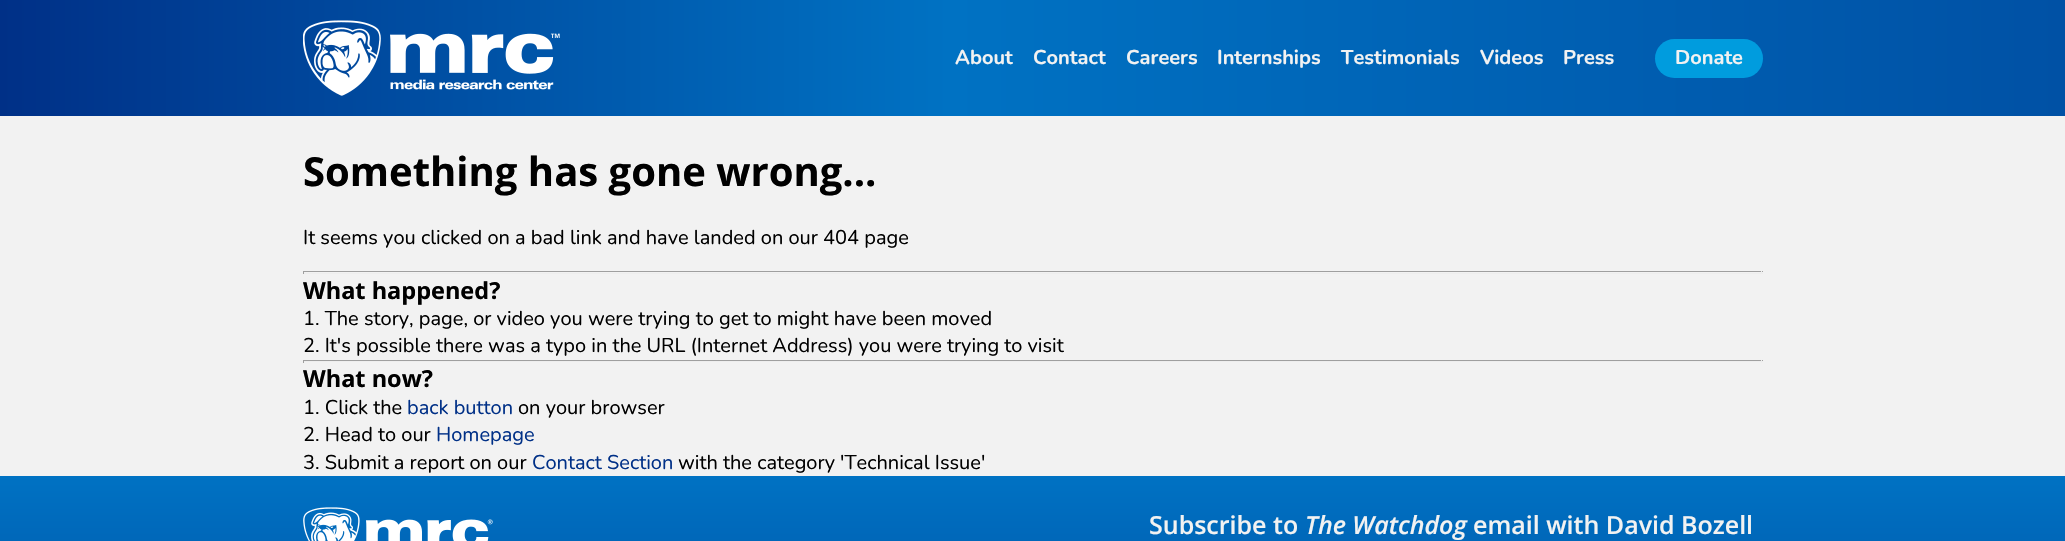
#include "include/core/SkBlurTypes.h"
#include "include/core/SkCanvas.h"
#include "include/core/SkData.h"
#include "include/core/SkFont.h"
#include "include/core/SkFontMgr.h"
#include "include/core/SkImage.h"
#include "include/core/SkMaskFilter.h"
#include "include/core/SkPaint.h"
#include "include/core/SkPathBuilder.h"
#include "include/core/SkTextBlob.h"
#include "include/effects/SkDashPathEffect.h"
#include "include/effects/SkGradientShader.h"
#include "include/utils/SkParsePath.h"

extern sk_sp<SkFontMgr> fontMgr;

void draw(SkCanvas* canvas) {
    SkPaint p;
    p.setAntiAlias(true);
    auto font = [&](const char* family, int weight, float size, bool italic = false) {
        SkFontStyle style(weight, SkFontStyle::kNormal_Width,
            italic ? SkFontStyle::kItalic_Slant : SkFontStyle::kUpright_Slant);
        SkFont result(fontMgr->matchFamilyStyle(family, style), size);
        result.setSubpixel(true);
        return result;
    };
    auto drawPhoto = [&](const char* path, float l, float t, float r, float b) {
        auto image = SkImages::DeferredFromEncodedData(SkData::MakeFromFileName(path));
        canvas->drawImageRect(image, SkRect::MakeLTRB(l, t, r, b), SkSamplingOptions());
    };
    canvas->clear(0xFFF2F2F2);
    {
        const SkColor colors[] = {0xFF003087, 0xFF0072C3, 0xFF0051A5};
        const float stops[] = {0, 0.46f, 1};
        const SkPoint ends[] = {{0, 58}, {2065, 58}};
        p.setShader(SkGradientShader::MakeLinear(ends, colors, stops, 3, SkTileMode::kClamp));
        p.setAlpha(255);
    }
    canvas->drawRect(SkRect::MakeLTRB(0, 0, 2065, 116), p);
    drawPhoto("media/1.png", 303, 20, 560, 96);
    auto font1 = font("Nunito", 700, 20);
    p.setShader(nullptr);
    p.setColor(0xFFF2F2F2);
    {
        const struct { const char* s; float x, y; } items[] = {
            {"About", 955, 64},
            {"Contact", 1033, 64},
            {"Careers", 1126, 64},
            {"Internships", 1217, 64},
            {"Testimonials", 1341, 64},
            {"Videos", 1480, 64},
            {"Press", 1563, 64},
        };
        for (auto [s, x, y] : items) {
            canvas->drawString(s, x, y, font1, p);
        }
    }
    p.setColor(0xFF009CDE);
    canvas->drawRoundRect(SkRect::MakeLTRB(1655, 39, 1763, 78), 19.5f, 19.5f, p);
    p.setColor(0xFFF2F2F2);
    canvas->drawString("Donate", 1675, 64, font1, p);
    auto font2 = font("Open Sans", 700, 40);
    p.setColor(0xFF000000);
    canvas->drawString("Something has gone wrong...", 303, 186, font2, p);
    auto font3 = font("Nunito", 400, 20);
    canvas->drawString("It seems you clicked on a bad link and have landed on our 404 page", 303, 244, font3, p);
    {
        const struct { float l, t, r, b; SkColor color; } items[] = {
            {303, 271, 1763, 272, 0xFF9F9F9F},
            {1761, 271, 1762, 274, 0xFFEEEEEE},
            {303, 273, 1763, 274, 0xFFEEEEEE},
            {303, 271, 304, 274, 0xFF9F9F9F},
        };
        for (auto [l, t, r, b, color] : items) {
            p.setColor(color);
            canvas->drawRect(SkRect::MakeLTRB(l, t, r, b), p);
        }
    }
    auto font4 = font("Open Sans", 700, 23.5f);
    p.setColor(0xFF000000);
    canvas->drawString("What happened?", 303, 299, font4, p);
    canvas->drawString("1. The story, page, or video you were trying to get to might have been moved", 303, 325, font3, p);
    canvas->drawString("2. It's possible there was a typo in the URL (Internet Address) you were trying to visit", 303, 352, font3, p);
    {
        const struct { float l, t, r, b; SkColor color; } items[] = {
            {303, 360, 1763, 361, 0xFF9F9F9F},
            {1761, 360, 1762, 363, 0xFFEEEEEE},
            {303, 361, 1763, 362, 0xFFEEEEEE},
            {303, 360, 304, 363, 0xFF9F9F9F},
        };
        for (auto [l, t, r, b, color] : items) {
            p.setColor(color);
            canvas->drawRect(SkRect::MakeLTRB(l, t, r, b), p);
        }
    }
    p.setColor(0xFF000000);
    canvas->drawString("What now?", 303, 387, font4, p);
    canvas->drawString("1. Click the", 303, 414, font3, p);
    p.setColor(0xFF003087);
    canvas->drawString("back button", 407, 414, font3, p);
    p.setColor(0xFF000000);
    canvas->drawString("on your browser", 518, 414, font3, p);
    canvas->drawString("2. Head to our", 303, 441, font3, p);
    p.setColor(0xFF003087);
    canvas->drawString("Homepage", 436, 441, font3, p);
    p.setColor(0xFF000000);
    canvas->drawString("3. Submit a report on our", 303, 469, font3, p);
    p.setColor(0xFF003087);
    canvas->drawString("Contact Section", 532, 469, font3, p);
    p.setColor(0xFF000000);
    canvas->drawString("with the category 'Technical Issue'", 678, 469, font3, p);
    {
        const SkColor colors[] = {0xFF0072C3, 0xFF003087};
        const float stops[] = {0, 1};
        const SkPoint ends[] = {{1033, 476}, {1033, 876}};
        p.setShader(SkGradientShader::MakeLinear(ends, colors, stops, 2, SkTileMode::kClamp));
        p.setAlpha(255);
    }
    canvas->drawRect(SkRect::MakeLTRB(0, 476, 2065, 541), p);
    drawPhoto("media/2.png", 303, 507, 493, 541);
    auto font5 = font("Open Sans", 600, 25);
    p.setShader(nullptr);
    p.setColor(0xFFF2F2F2);
    canvas->drawString("Subscribe to", 1149, 534, font5, p);
    auto font6 = font("Open Sans", 600, 25, true);
    canvas->drawString("The Watchdog", 1305, 534, font6, p);
    canvas->drawString("email with David Bozell", 1473, 534, font5, p);
}
